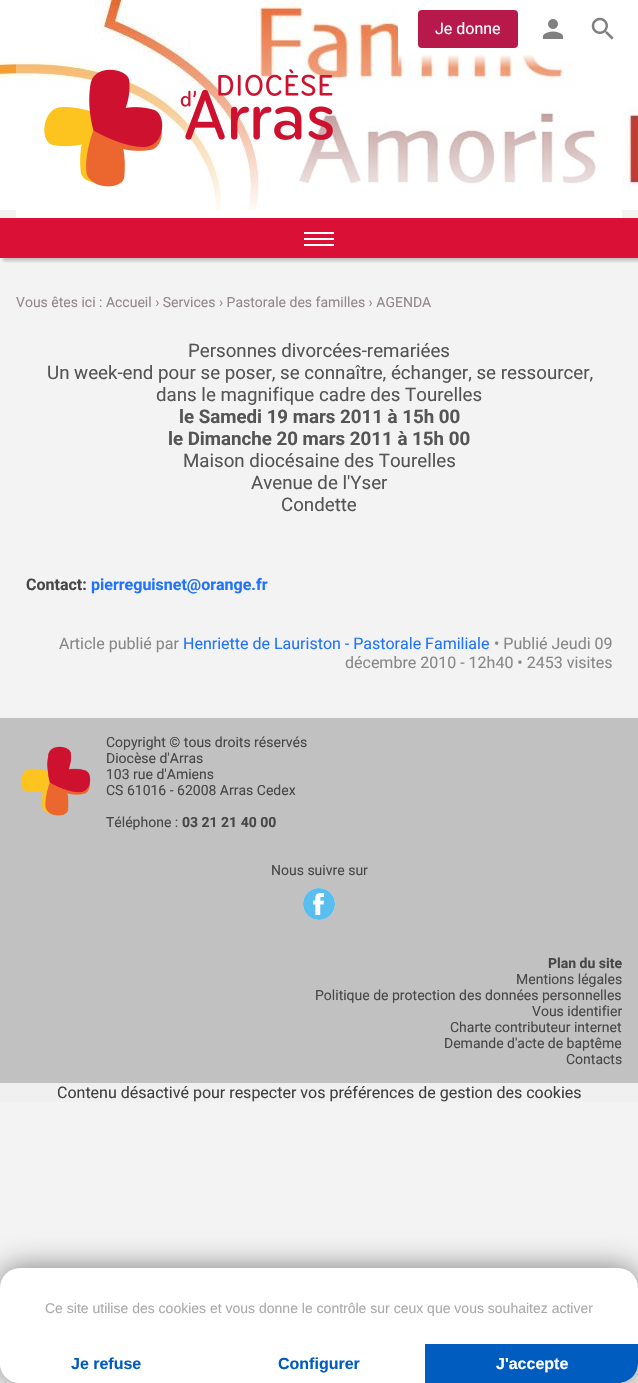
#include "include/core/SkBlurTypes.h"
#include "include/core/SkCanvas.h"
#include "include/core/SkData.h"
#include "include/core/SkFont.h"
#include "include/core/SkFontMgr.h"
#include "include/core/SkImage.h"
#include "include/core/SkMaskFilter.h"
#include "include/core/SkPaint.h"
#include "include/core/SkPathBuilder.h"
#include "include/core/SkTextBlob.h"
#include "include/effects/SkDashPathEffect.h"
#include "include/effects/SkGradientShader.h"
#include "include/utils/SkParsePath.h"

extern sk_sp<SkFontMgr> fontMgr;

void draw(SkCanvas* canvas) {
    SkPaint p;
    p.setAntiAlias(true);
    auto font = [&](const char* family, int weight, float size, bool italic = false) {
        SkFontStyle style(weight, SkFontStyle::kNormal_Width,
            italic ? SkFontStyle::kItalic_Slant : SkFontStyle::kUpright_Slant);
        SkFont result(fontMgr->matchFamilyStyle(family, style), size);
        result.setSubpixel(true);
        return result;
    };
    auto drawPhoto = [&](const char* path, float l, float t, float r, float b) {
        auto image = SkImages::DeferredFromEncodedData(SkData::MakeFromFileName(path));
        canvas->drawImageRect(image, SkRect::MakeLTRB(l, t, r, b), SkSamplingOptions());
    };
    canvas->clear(0xFFF3F3F3);
    drawPhoto("media/1.png", 0, 0, 638, 210);
    {
        const SkColor colors[] = {0x00FFFFFF, 0xFFFFFFFF};
        const float stops[] = {0, 1};
        const SkPoint ends[] = {{319, 0}, {319, 218}};
        p.setShader(SkGradientShader::MakeLinear(ends, colors, stops, 2, SkTileMode::kClamp));
        p.setAlpha(255);
    }
    canvas->drawRect(SkRect::MakeLTRB(16, 5, 622, 218), p);
    drawPhoto("media/2.png", 44, 69, 333, 187);
    {
        const SkColor colors[] = {0xFFFFFFFF, 0x00FFFFFF};
        const float stops[] = {0.8f, 1};
        const SkPoint ends[] = {{518, 0}, {518, 68}};
        p.setShader(SkGradientShader::MakeLinear(ends, colors, stops, 2, SkTileMode::kClamp));
        p.setAlpha(255);
    }
    canvas->drawRect(SkRect::MakeLTRB(398, 0, 575, 68), p);
    p.setShader(nullptr);
    p.setColor(0xFFB6194A);
    canvas->drawRoundRect(SkRect::MakeLTRB(418, 10, 518, 48), 4, 4, p);
    auto font1 = font("Roboto", 400, 16);
    p.setColor(0xFFFFFFFF);
    canvas->drawString("Je donne", 435, 34, font1, p);
    drawPhoto("media/3.png", 543, 19, 563, 39);
    drawPhoto("media/4.png", 591, 17, 614, 40);
    p.setColor(0xFFDA1036);
    canvas->drawRect(SkRect::MakeLTRB(0, 218, 638, 258), p);
    canvas->save();
    canvas->clipRect(SkRect::MakeLTRB(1, 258, 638, 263));
    p.setColor(0x33000000);
    p.setMaskFilter(SkMaskFilter::MakeBlur(kNormal_SkBlurStyle, 1.5f));
    canvas->drawRect(SkRect::MakeLTRB(3, 221, 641, 261), p);
    p.setMaskFilter(nullptr);
    canvas->restore();
    {
        const struct { float l, t, r, b; SkColor color; } items[] = {
            {304, 238, 334, 240, 0xFFFFFFFF},
            {304, 232, 334, 234, 0xFFFFFFFF},
            {304, 244, 334, 246, 0xFFFFFFFF},
        };
        for (auto [l, t, r, b, color] : items) {
            p.setColor(color);
            canvas->drawRect(SkRect::MakeLTRB(l, t, r, b), p);
        }
    }
    auto font2 = font("Roboto", 400, 14);
    p.setColor(0xFF93898A);
    canvas->drawString("Vous êtes ici : Accueil › Services › Pastorale des familles › AGENDA", 16, 307, font2, p);
    auto font3 = font("Roboto", 400, 18.7f);
    p.setColor(0xFF555555);
    {
        const struct { const char* s; float x, y; } items[] = {
            {"Personnes divorcées-remariées", 188, 357},
            {"Un week-end pour se poser, se connaître, échanger, se ressourcer,", 47, 379},
            {"dans le magnifique cadre des Tourelles", 156, 401},
        };
        for (auto [s, x, y] : items) {
            canvas->drawString(s, x, y, font3, p);
        }
    }
    auto font4 = font("Roboto", 700, 18.7f);
    canvas->drawString("le Samedi 19 mars 2011 à 15h 00", 179, 423, font4, p);
    canvas->drawString("le Dimanche 20 mars 2011 à 15h 00", 168, 445, font4, p);
    {
        const struct { const char* s; float x, y; } items[] = {
            {"Maison diocésaine des Tourelles", 183, 467},
            {"Avenue de l'Yser", 251, 489},
            {"Condette", 281, 511},
        };
        for (auto [s, x, y] : items) {
            canvas->drawString(s, x, y, font3, p);
        }
    }
    auto font5 = font("Roboto", 700, 16);
    p.setColor(0xFF474747);
    canvas->drawString("Contact:", 26, 590, font5, p);
    p.setColor(0xFF2173FF);
    canvas->drawString("pierreguisnet@orange.fr", 91, 590, font5, p);
    p.setColor(0xFF888888);
    canvas->drawString("Article publié par", 59, 649, font1, p);
    p.setColor(0xFF2173FF);
    canvas->drawString("Henriette de Lauriston - Pastorale Familiale", 183, 649, font1, p);
    p.setColor(0xFF888888);
    canvas->drawString("• Publié Jeudi 09", 494, 649, font1, p);
    canvas->drawString("décembre 2010 - 12h40 • 2453 visites", 345, 668, font1, p);
    p.setColor(0xFFC1C1C1);
    canvas->drawRect(SkRect::MakeLTRB(0, 718, 638, 1083), p);
    drawPhoto("media/5.png", 20, 746, 91, 816);
    p.setColor(0xFF474747);
    {
        const struct { const char* s; float x, y; } items[] = {
            {"Copyright © tous droits réservés", 106, 747},
            {"Diocèse d'Arras", 106, 763},
            {"103 rue d'Amiens", 106, 779},
            {"CS 61016 - 62008 Arras Cedex", 106, 795},
            {"Téléphone :", 106, 827},
        };
        for (auto [s, x, y] : items) {
            canvas->drawString(s, x, y, font2, p);
        }
    }
    auto font6 = font("Roboto", 700, 14);
    canvas->drawString("03 21 21 40 00", 182, 827, font6, p);
    canvas->drawString("Nous suivre sur", 271, 875, font2, p);
    drawPhoto("media/6.png", 303, 888, 335, 920);
    canvas->drawString("Plan du site", 548, 968, font6, p);
    {
        const struct { const char* s; float x, y; } items[] = {
            {"Mentions légales", 516, 984},
            {"Politique de protection des données personnelles", 315, 1000},
            {"Vous identifier", 532, 1016},
            {"Charte contributeur internet", 450, 1032},
            {"Demande d'acte de baptême", 444, 1048},
            {"Contacts", 566, 1064},
        };
        for (auto [s, x, y] : items) {
            canvas->drawString(s, x, y, font2, p);
        }
    }
    p.setColor(0xFFF0F0F0);
    canvas->drawRect(SkRect::MakeLTRB(0, 1083, 638, 1102), p);
    p.setColor(0xFF404040);
    canvas->drawString("Contenu désactivé pour respecter vos préférences de gestion des cookies", 57, 1098, font1, p);
    p.setColor(0x80000000);
    p.setMaskFilter(SkMaskFilter::MakeBlur(kNormal_SkBlurStyle, 15));
    canvas->drawRoundRect(SkRect::MakeLTRB(0, 1268, 638, 1383), 20, 20, p);
    p.setMaskFilter(nullptr);
    p.setColor(0xFFFFFFFF);
    canvas->drawRoundRect(SkRect::MakeLTRB(0, 1268, 638, 1383), 20, 20, p);
    auto font7 = font("Liberation Sans", 400, 14);
    p.setColor(0xFFAAAAAA);
    canvas->drawString("Ce site utilise des cookies et vous donne le contrôle sur ceux que vous souhaitez activer", 45, 1313, font7, p);
    p.setColor(0xFFFFFFFF);
    canvas->drawPath(SkPathBuilder().moveTo(0, 1344).lineTo(213, 1344).lineTo(213, 1383).lineTo(20, 1383).cubicTo(9, 1383, 0, 1374, 0, 1363).close().detach(), p);
    auto font8 = font("Liberation Sans", 700, 16);
    p.setColor(0xFF005CBF);
    canvas->drawString("Je refuse", 71, 1369, font8, p);
    canvas->drawString("Configurer", 278, 1369, font8, p);
    canvas->drawPath(SkPathBuilder().moveTo(425, 1344).lineTo(638, 1344).lineTo(638, 1363).cubicTo(638, 1374, 629, 1383, 618, 1383).lineTo(425, 1383).close().detach(), p);
    p.setColor(0xFFFFFFFF);
    canvas->drawString("J'accepte", 496, 1369, font8, p);
}
